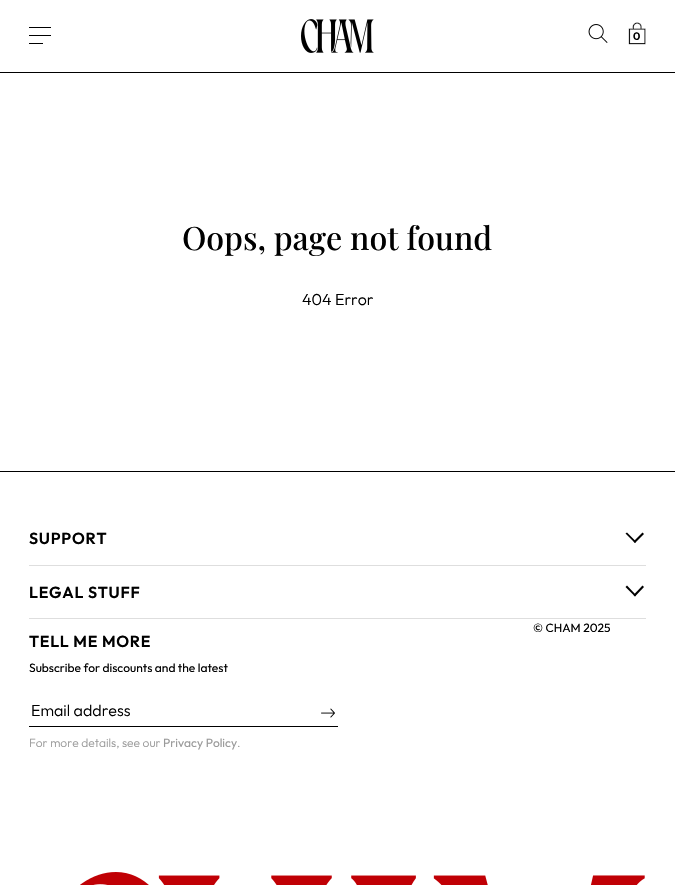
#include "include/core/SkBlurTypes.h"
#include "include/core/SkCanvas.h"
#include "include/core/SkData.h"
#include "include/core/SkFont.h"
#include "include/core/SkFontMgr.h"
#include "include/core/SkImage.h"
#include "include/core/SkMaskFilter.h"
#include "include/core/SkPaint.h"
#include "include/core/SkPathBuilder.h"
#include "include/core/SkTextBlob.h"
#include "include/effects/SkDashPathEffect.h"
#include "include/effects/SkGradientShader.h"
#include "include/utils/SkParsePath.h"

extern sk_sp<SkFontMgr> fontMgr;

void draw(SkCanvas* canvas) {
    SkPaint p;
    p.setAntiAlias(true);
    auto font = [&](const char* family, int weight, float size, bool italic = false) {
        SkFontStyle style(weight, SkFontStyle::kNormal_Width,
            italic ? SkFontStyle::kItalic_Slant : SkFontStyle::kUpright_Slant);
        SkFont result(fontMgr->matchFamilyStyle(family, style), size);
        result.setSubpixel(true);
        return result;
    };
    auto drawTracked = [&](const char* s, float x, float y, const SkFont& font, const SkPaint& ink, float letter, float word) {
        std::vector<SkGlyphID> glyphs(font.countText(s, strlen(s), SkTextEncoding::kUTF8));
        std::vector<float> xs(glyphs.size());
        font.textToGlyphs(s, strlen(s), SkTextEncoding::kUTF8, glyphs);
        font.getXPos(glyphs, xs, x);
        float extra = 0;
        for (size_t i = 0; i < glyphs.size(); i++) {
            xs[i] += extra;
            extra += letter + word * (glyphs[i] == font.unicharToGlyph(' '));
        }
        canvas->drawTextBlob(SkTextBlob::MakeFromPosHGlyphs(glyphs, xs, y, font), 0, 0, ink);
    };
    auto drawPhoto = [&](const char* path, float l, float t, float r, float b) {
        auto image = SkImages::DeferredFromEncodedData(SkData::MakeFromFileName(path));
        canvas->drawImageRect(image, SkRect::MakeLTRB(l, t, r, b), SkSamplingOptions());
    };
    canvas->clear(0xFFFFFFFF);
    {
        const struct { float l, t, r, b; SkColor color; } items[] = {
            {0, 72, 675, 73, 0xFF000000},
            {29, 27, 51, 28, 0xFF000000},
            {29, 35, 51, 36, 0xFF000000},
            {29, 43, 43, 44, 0xFF000000},
        };
        for (auto [l, t, r, b, color] : items) {
            p.setColor(color);
            canvas->drawRect(SkRect::MakeLTRB(l, t, r, b), p);
        }
    }
    drawPhoto("media/1.png", 301, 19, 374, 53);
    drawPhoto("media/2.png", 588, 24, 608, 43);
    auto font1 = font("Outfit", 600, 11);
    drawTracked("0", 633, 40, font1, p, 0.75f, 0);
    drawPhoto("media/3.png", 628, 22, 646, 45);
    auto font2 = font("Playfair Display", 500, 32.1f);
    canvas->drawString("Oops, page not found", 182, 250, font2, p);
    auto font3 = font("Outfit", 300, 16);
    canvas->drawString("404 Error", 302, 305, font3, p);
    canvas->drawRect(SkRect::MakeLTRB(0, 471, 675, 472), p);
    p.setColor(0xFFDEDEDE);
    canvas->drawRect(SkRect::MakeLTRB(29, 565, 646, 566), p);
    auto font4 = font("Outfit", 600, 16);
    p.setColor(0xFF000000);
    drawTracked("SUPPORT", 29, 544, font4, p, 0.75f, 0);
    canvas->drawPath(SkPathBuilder().moveTo(642.5f, 532.5f).lineTo(644, 534).lineTo(635, 543).lineTo(633.5f, 541.5f).close().detach(), p);
    canvas->drawPath(SkPathBuilder().moveTo(627, 532.5f).lineTo(636, 541.5f).lineTo(635, 543).lineTo(625.5f, 533.5f).close().detach(), p);
    p.setColor(0xFFDEDEDE);
    canvas->drawRect(SkRect::MakeLTRB(29, 618, 646, 619), p);
    p.setColor(0xFF000000);
    drawTracked("LEGAL STUFF", 29, 598, font4, p, 0.75f, 0);
    canvas->drawPath(SkPathBuilder().moveTo(642.5f, 585.5f).lineTo(644, 587).lineTo(635, 596.5f).lineTo(633.5f, 595).close().detach(), p);
    canvas->drawPath(SkPathBuilder().moveTo(627, 585.5f).lineTo(636, 595).lineTo(635, 596.5f).lineTo(625.5f, 587).close().detach(), p);
    auto font5 = font("Outfit", 400, 12);
    canvas->drawString("© CHAM 2025", 533, 632, font5, p);
    drawTracked("TELL ME MORE", 29, 647, font4, p, 0.75f, 0);
    canvas->drawString("Subscribe for discounts and the latest", 29, 672, font5, p);
    canvas->drawRect(SkRect::MakeLTRB(29, 726, 338, 727), p);
    canvas->drawString("Email address", 31, 716, font3, p);
    drawPhoto("media/4.png", 321, 708, 335, 718);
    auto font6 = font("Outfit", 300, 12);
    p.setColor(0xFF9A9A9A);
    canvas->drawString("For more details, see our", 29, 747, font6, p);
    canvas->drawString("Privacy Policy", 163, 747, font5, p);
    canvas->drawString(".", 237, 747, font6, p);
    drawPhoto("media/5.png", 80, 872, 645, 885);
}
